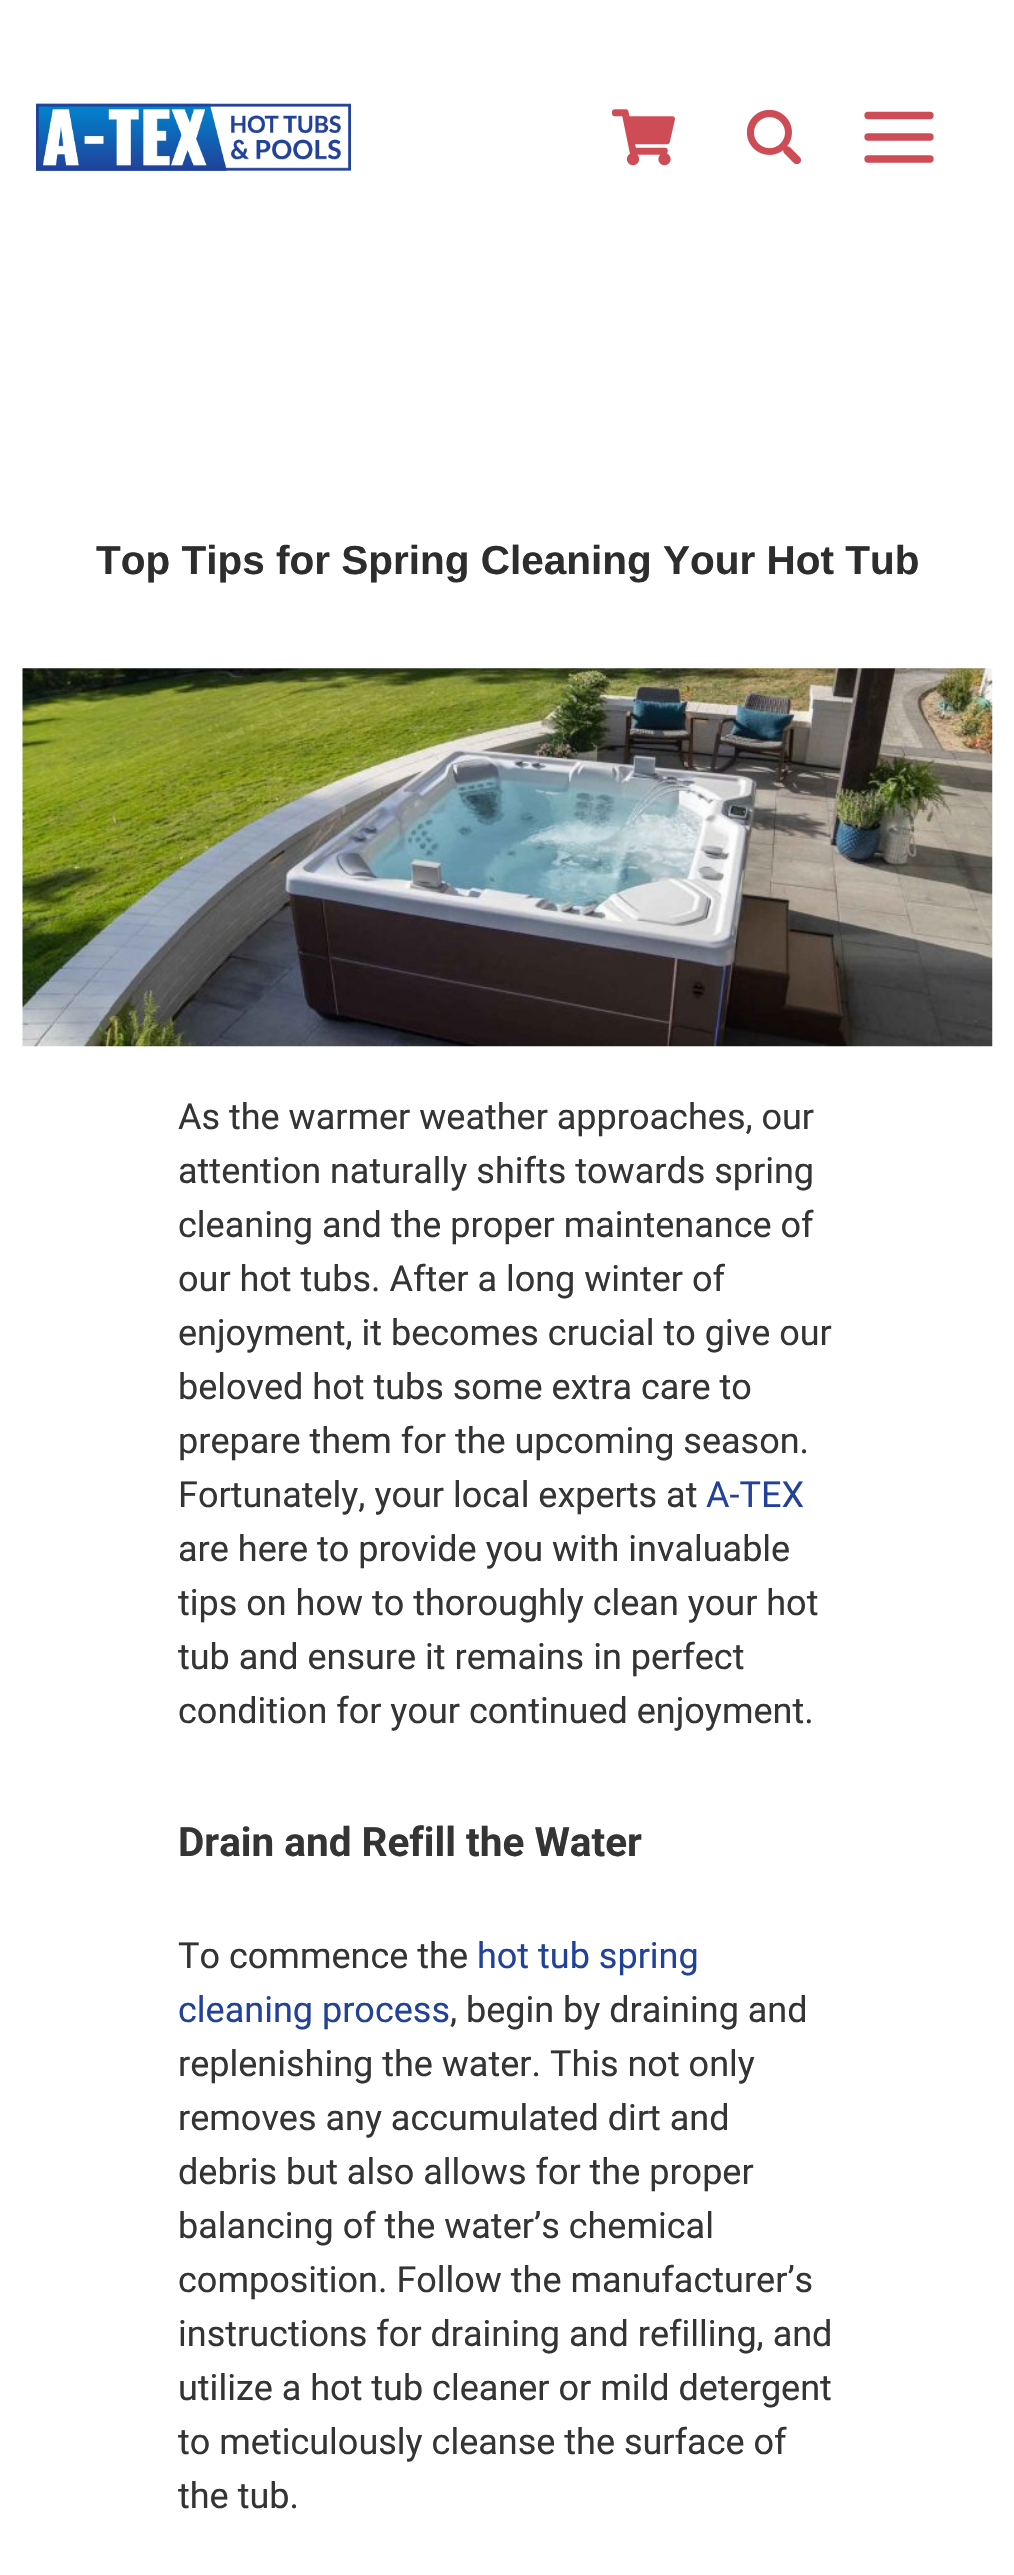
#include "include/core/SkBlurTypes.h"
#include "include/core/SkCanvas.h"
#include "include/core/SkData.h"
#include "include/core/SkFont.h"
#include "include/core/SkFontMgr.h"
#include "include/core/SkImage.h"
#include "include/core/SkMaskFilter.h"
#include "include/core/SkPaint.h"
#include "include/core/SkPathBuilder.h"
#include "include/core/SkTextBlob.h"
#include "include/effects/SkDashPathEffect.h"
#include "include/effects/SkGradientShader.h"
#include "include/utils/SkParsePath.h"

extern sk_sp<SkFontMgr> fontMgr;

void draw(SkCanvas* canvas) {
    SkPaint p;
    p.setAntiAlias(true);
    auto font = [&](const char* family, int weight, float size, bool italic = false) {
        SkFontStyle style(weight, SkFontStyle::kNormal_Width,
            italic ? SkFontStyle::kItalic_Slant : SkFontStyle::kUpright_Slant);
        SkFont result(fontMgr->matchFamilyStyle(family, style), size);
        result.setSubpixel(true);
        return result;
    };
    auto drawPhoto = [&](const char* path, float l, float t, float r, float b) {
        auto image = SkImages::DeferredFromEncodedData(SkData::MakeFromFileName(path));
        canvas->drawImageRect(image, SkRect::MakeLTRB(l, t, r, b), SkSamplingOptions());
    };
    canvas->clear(0xFFFFFFFF);
    drawPhoto("media/1.png", 36, 103, 351, 171);
    drawPhoto("media/2.png", 612, 109, 675, 166);
    drawPhoto("media/3.png", 747, 110, 801, 164);
    p.setStyle(SkPaint::kStroke_Style);
    p.setStrokeWidth(7.3f);
    p.setStrokeCap(SkPaint::kRound_Cap);
    p.setStrokeJoin(SkPaint::kRound_Join);
    p.setColor(0xFFCD4C56);
    canvas->drawPath(SkPathBuilder().moveTo(930, 159).lineTo(868, 159).detach(), p);
    canvas->drawPath(SkPathBuilder().moveTo(930, 137).lineTo(868, 137).detach(), p);
    canvas->drawPath(SkPathBuilder().moveTo(930, 115.5f).lineTo(868, 115.5f).detach(), p);
    auto font1 = font("Liberation Sans", 700, 40.5f);
    p.setStyle(SkPaint::kFill_Style);
    p.setColor(0xFF2D2D2D);
    canvas->drawString("Top Tips for Spring Cleaning Your Hot Tub", 96, 574, font1, p);
    drawPhoto("media/4.png", 22, 668, 993, 1047);
    auto font2 = font("Roboto", 400, 36);
    p.setColor(0xFF343434);
    {
        const struct { const char* s; float x, y; } items[] = {
            {"As the warmer weather approaches, our", 178, 1129},
            {"attention naturally shifts towards spring", 178, 1183},
            {"cleaning and the proper maintenance of", 178, 1237},
            {"our hot tubs. After a long winter of", 178, 1291},
            {"enjoyment, it becomes crucial to give our", 178, 1345},
            {"beloved hot tubs some extra care to", 178, 1399},
            {"prepare them for the upcoming season.", 178, 1453},
            {"Fortunately, your local experts at", 178, 1507},
        };
        for (auto [s, x, y] : items) {
            canvas->drawString(s, x, y, font2, p);
        }
    }
    p.setColor(0xFF21419A);
    canvas->drawString("A-TEX", 706, 1507, font2, p);
    p.setColor(0xFF343434);
    {
        const struct { const char* s; float x, y; } items[] = {
            {"are here to provide you with invaluable", 178, 1561},
            {"tips on how to thoroughly clean your hot", 178, 1615},
            {"tub and ensure it remains in perfect", 178, 1669},
            {"condition for your continued enjoyment.", 178, 1723},
        };
        for (auto [s, x, y] : items) {
            canvas->drawString(s, x, y, font2, p);
        }
    }
    auto font3 = font("Roboto", 700, 40.5f);
    canvas->drawString("Drain and Refill the Water", 178, 1856, font3, p);
    canvas->drawString("To commence the", 178, 1968, font2, p);
    p.setColor(0xFF21419A);
    canvas->drawString("hot tub spring", 477, 1968, font2, p);
    canvas->drawString("cleaning process", 178, 2022, font2, p);
    p.setColor(0xFF343434);
    {
        const struct { const char* s; float x, y; } items[] = {
            {", begin by draining and", 450, 2022},
            {"replenishing the water. This not only", 178, 2076},
            {"removes any accumulated dirt and", 178, 2130},
            {"debris but also allows for the proper", 178, 2184},
            {"balancing of the water’s chemical", 178, 2238},
            {"composition. Follow the manufacturer’s", 178, 2292},
            {"instructions for draining and refilling, and", 178, 2346},
            {"utilize a hot tub cleaner or mild detergent", 178, 2400},
            {"to meticulously cleanse the surface of", 178, 2454},
            {"the tub.", 178, 2508},
        };
        for (auto [s, x, y] : items) {
            canvas->drawString(s, x, y, font2, p);
        }
    }
}
